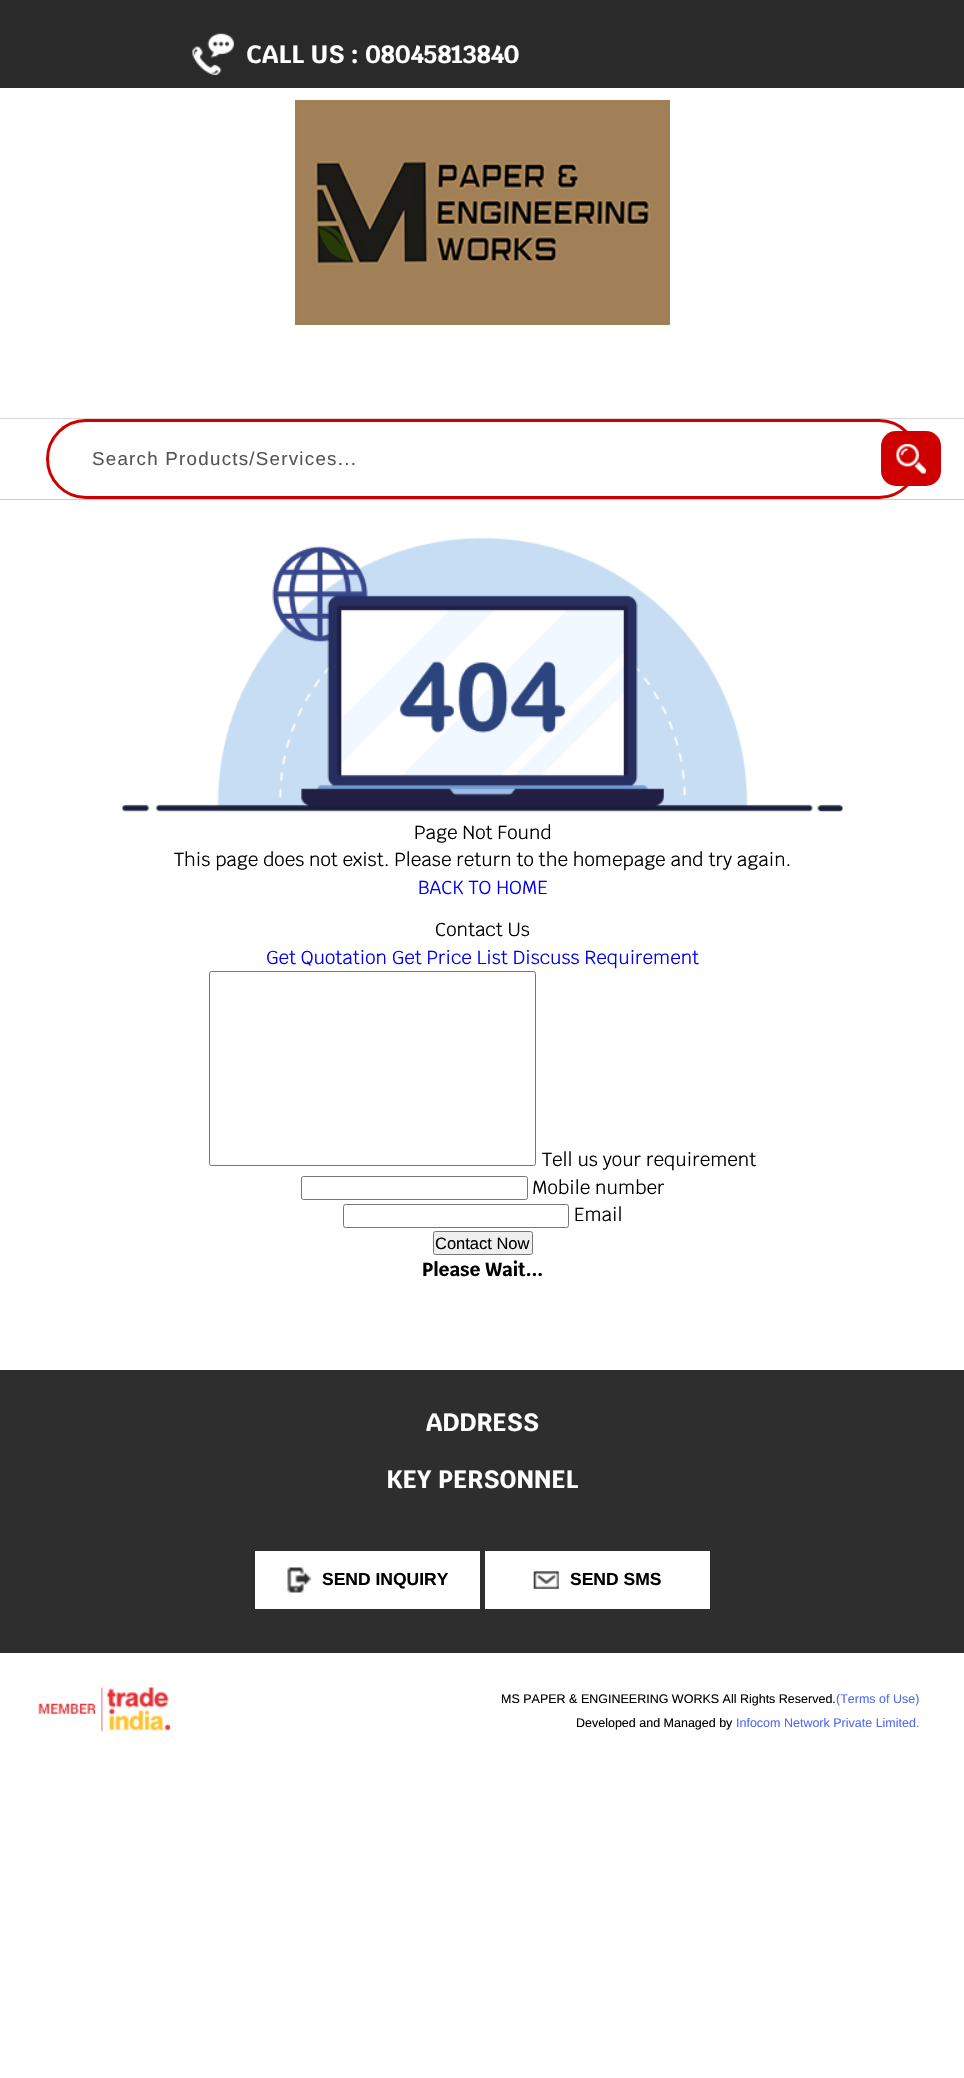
#include "include/core/SkBlurTypes.h"
#include "include/core/SkCanvas.h"
#include "include/core/SkData.h"
#include "include/core/SkFont.h"
#include "include/core/SkFontMgr.h"
#include "include/core/SkImage.h"
#include "include/core/SkMaskFilter.h"
#include "include/core/SkPaint.h"
#include "include/core/SkPathBuilder.h"
#include "include/core/SkTextBlob.h"
#include "include/effects/SkDashPathEffect.h"
#include "include/effects/SkGradientShader.h"
#include "include/utils/SkParsePath.h"

extern sk_sp<SkFontMgr> fontMgr;

void draw(SkCanvas* canvas) {
    SkPaint p;
    p.setAntiAlias(true);
    auto font = [&](const char* family, int weight, float size, bool italic = false) {
        SkFontStyle style(weight, SkFontStyle::kNormal_Width,
            italic ? SkFontStyle::kItalic_Slant : SkFontStyle::kUpright_Slant);
        SkFont result(fontMgr->matchFamilyStyle(family, style), size);
        result.setSubpixel(true);
        return result;
    };
    auto drawTracked = [&](const char* s, float x, float y, const SkFont& font, const SkPaint& ink, float letter, float word) {
        std::vector<SkGlyphID> glyphs(font.countText(s, strlen(s), SkTextEncoding::kUTF8));
        std::vector<float> xs(glyphs.size());
        font.textToGlyphs(s, strlen(s), SkTextEncoding::kUTF8, glyphs);
        font.getXPos(glyphs, xs, x);
        float extra = 0;
        for (size_t i = 0; i < glyphs.size(); i++) {
            xs[i] += extra;
            extra += letter + word * (glyphs[i] == font.unicharToGlyph(' '));
        }
        canvas->drawTextBlob(SkTextBlob::MakeFromPosHGlyphs(glyphs, xs, y, font), 0, 0, ink);
    };
    auto drawPhoto = [&](const char* path, float l, float t, float r, float b) {
        auto image = SkImages::DeferredFromEncodedData(SkData::MakeFromFileName(path));
        canvas->drawImageRect(image, SkRect::MakeLTRB(l, t, r, b), SkSamplingOptions());
    };
    canvas->clear(0xFFFFFFFF);
    p.setColor(0xFF2A2A2A);
    canvas->drawRect(SkRect::MakeLTRB(0, 0, 964, 88), p);
    drawPhoto("media/1.png", 192, 33, 234, 75);
    auto font1 = font("Krub", 700, 25);
    p.setColor(0xFFFFFFFF);
    canvas->drawString("CALL US : 08045813840", 246, 63, font1, p);
    p.setColor(0xFFD7D7D7);
    canvas->drawRect(SkRect::MakeLTRB(0, 418, 964, 419), p);
    drawPhoto("media/2.png", 295, 100, 670, 325);
    p.setStyle(SkPaint::kStroke_Style);
    p.setStrokeWidth(3);
    p.setColor(0xFFCE0000);
    canvas->drawRoundRect(SkRect::MakeLTRB(47.5f, 420.5f, 917.5f, 497.5f), 38.5f, 38.5f, p);
    auto font2 = font("Liberation Sans", 400, 18.75f);
    p.setStyle(SkPaint::kFill_Style);
    p.setColor(0xFF545454);
    drawTracked("Search Products/Services...", 92, 465, font2, p, 1.25f, 0);
    p.setColor(0xFFCE0000);
    canvas->drawRoundRect(SkRect::MakeLTRB(881, 431, 941, 486), 15, 15, p);
    drawPhoto("media/3.png", 896, 443, 927, 474);
    p.setColor(0xFFCCCCCC);
    canvas->drawRect(SkRect::MakeLTRB(0, 499, 964, 500), p);
    drawPhoto("media/4.png", 122, 537, 843, 812);
    auto font3 = font("Krub", 400, 18.75f);
    p.setColor(0xFF000000);
    canvas->drawString("Page Not Found", 414, 839, font3, p);
    canvas->drawString("This page does not exist. Please return to the homepage and try again.", 174, 866, font3, p);
    p.setColor(0xFF0000EE);
    canvas->drawString("BACK TO HOME", 418, 894, font3, p);
    p.setColor(0xFF000000);
    canvas->drawString("Contact Us", 435, 936, font3, p);
    p.setColor(0xFF0000EE);
    canvas->drawString("Get Quotation Get Price List Discuss Requirement", 266, 964, font3, p);
    p.setStyle(SkPaint::kStroke_Style);
    p.setStrokeWidth(1);
    p.setColor(0xFF767676);
    canvas->drawRoundRect(SkRect::MakeLTRB(209.5f, 971.5f, 535.5f, 1165.5f), 2, 2, p);
    p.setStyle(SkPaint::kFill_Style);
    p.setColor(0xFF000000);
    canvas->drawString("Tell us your requirement", 542, 1166, font3, p);
    p.setStyle(SkPaint::kStroke_Style);
    p.setColor(0xFF767676);
    canvas->drawRoundRect(SkRect::MakeLTRB(301.5f, 1176.5f, 527.5f, 1199.5f), 2, 2, p);
    p.setStyle(SkPaint::kFill_Style);
    p.setColor(0xFF000000);
    canvas->drawString("Mobile number", 532, 1194, font3, p);
    p.setStyle(SkPaint::kStroke_Style);
    p.setColor(0xFF767676);
    canvas->drawRoundRect(SkRect::MakeLTRB(343.5f, 1204.5f, 568.5f, 1227.5f), 2, 2, p);
    p.setStyle(SkPaint::kFill_Style);
    p.setColor(0xFF000000);
    canvas->drawString("Email", 574, 1221, font3, p);
    p.setColor(0xFFEFEFEF);
    canvas->drawRoundRect(SkRect::MakeLTRB(433.5f, 1231.5f, 532.5f, 1254.5f), 2, 2, p);
    p.setStyle(SkPaint::kStroke_Style);
    p.setColor(0xFF767676);
    canvas->drawRoundRect(SkRect::MakeLTRB(433.5f, 1231.5f, 532.5f, 1254.5f), 2, 2, p);
    auto font4 = font("Liberation Sans", 400, 16.5f);
    p.setStyle(SkPaint::kFill_Style);
    p.setColor(0xFF000000);
    canvas->drawString("Contact Now", 435, 1249, font4, p);
    auto font5 = font("Krub", 700, 18.75f);
    canvas->drawString("Please Wait...", 422, 1276, font5, p);
    p.setColor(0xFF2E2E2E);
    canvas->drawRect(SkRect::MakeLTRB(0, 1370, 964, 1653), p);
    p.setColor(0xFFFFFFFF);
    canvas->drawString("ADDRESS", 426, 1431, font1, p);
    canvas->drawString("KEY PERSONNEL", 386, 1488, font1, p);
    canvas->drawRect(SkRect::MakeLTRB(255, 1551, 480, 1609), p);
    drawPhoto("media/5.png", 287, 1567, 312, 1593);
    auto font6 = font("Liberation Sans", 700, 17.5f);
    p.setColor(0xFF000000);
    canvas->drawString("SEND INQUIRY", 322, 1585, font6, p);
    p.setColor(0xFFFFFFFF);
    canvas->drawRect(SkRect::MakeLTRB(485, 1551, 710, 1609), p);
    drawPhoto("media/6.png", 533, 1571, 559, 1589);
    p.setColor(0xFF000000);
    canvas->drawString("SEND SMS", 570, 1585, font6, p);
    drawPhoto("media/7.png", 38, 1687, 171, 1732);
    auto font7 = font("Liberation Sans", 400, 12.5f);
    canvas->drawString("MS PAPER & ENGINEERING WORKS All Rights Reserved.", 501, 1703, font7, p);
    p.setColor(0xFF526AF1);
    canvas->drawString("(Terms of Use)", 836, 1703, font7, p);
    p.setColor(0xFF000000);
    canvas->drawString("Developed and Managed by", 576, 1727, font7, p);
    p.setColor(0xFF526AF1);
    canvas->drawString("Infocom Network Private Limited.", 736, 1727, font7, p);
}
